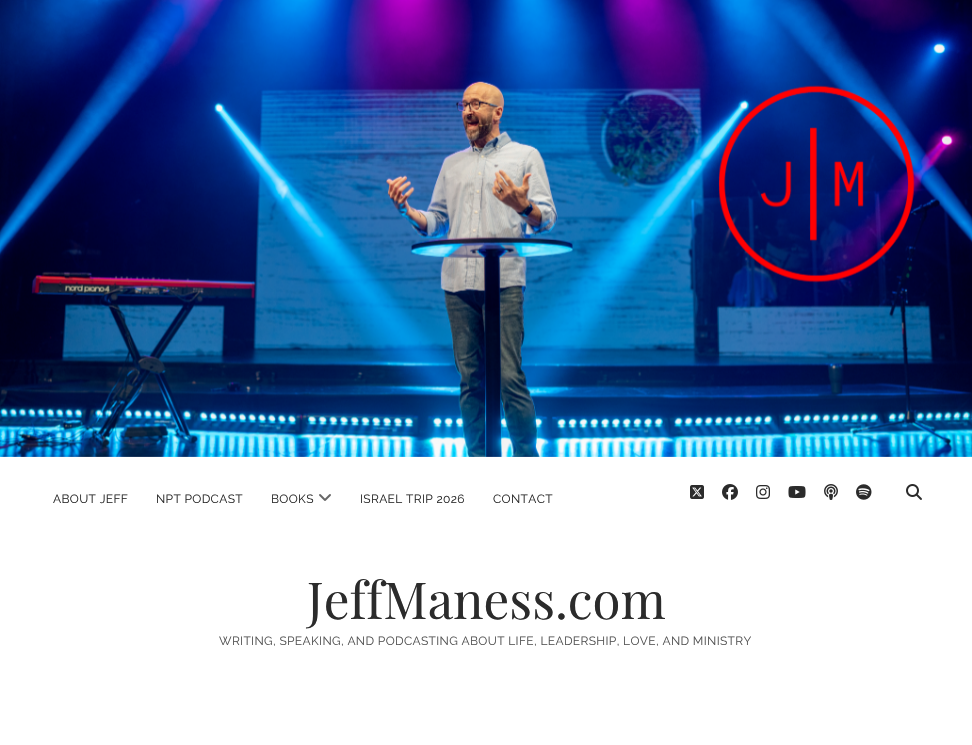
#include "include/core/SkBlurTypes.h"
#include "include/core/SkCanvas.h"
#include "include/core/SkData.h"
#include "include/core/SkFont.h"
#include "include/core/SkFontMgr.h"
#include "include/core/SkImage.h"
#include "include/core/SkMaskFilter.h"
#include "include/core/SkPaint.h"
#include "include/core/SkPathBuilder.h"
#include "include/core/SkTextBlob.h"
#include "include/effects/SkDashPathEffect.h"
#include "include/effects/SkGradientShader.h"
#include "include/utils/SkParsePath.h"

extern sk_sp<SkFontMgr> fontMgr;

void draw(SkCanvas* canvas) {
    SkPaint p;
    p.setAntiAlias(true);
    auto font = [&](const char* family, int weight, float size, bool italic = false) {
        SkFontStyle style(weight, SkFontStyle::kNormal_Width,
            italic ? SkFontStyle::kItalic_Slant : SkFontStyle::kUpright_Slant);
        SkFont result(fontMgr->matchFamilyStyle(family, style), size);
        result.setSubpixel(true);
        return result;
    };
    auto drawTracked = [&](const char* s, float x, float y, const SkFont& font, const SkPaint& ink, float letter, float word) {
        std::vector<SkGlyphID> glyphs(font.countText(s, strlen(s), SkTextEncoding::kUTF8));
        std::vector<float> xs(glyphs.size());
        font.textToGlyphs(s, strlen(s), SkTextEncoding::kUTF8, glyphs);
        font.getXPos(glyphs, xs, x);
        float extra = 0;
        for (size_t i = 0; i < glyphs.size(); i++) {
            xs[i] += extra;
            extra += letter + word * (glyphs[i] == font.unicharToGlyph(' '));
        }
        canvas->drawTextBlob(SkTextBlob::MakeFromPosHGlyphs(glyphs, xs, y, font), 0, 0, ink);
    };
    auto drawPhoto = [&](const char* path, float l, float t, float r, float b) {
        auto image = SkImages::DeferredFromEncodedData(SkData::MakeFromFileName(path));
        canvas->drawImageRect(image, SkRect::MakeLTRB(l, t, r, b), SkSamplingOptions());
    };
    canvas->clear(0xFFFFFFFF);
    drawPhoto("media/1.png", 0, 0, 972, 457);
    auto font1 = font("Raleway", 400, 12);
    p.setColor(0xFF2B2B2B);
    {
        const struct { const char* s; float x, y; } items[] = {
            {"ABOUT JEFF", 53, 503},
            {"NPT PODCAST", 156, 503},
            {"BOOKS", 271, 503},
        };
        for (auto [s, x, y] : items) {
            drawTracked(s, x, y, font1, p, 0.35f, 0);
        }
    }
    drawPhoto("media/2.png", 319, 494, 331, 501);
    drawTracked("ISRAEL TRIP 2026", 360, 503, font1, p, 0.35f, 0);
    drawTracked("CONTACT", 493, 503, font1, p, 0.35f, 0);
    drawPhoto("media/3.png", 690, 485, 704, 499);
    drawPhoto("media/4.png", 722, 484, 738, 500);
    drawPhoto("media/5.png", 756, 485, 770, 499);
    drawPhoto("media/6.png", 788, 486, 806, 498);
    drawPhoto("media/7.png", 824, 484, 838, 500);
    drawPhoto("media/8.png", 856, 484, 872, 500);
    drawPhoto("media/9.png", 906, 484, 922, 500);
    auto font2 = font("Playfair Display", 400, 51);
    canvas->drawString("JeffManess.com", 307, 619, font2, p);
    p.setColor(0xFF545454);
    drawTracked("WRITING, SPEAKING, AND PODCASTING ABOUT LIFE, LEADERSHIP, LOVE, AND MINISTRY", 219, 645, font1, p, 0.35f, 0);
}
